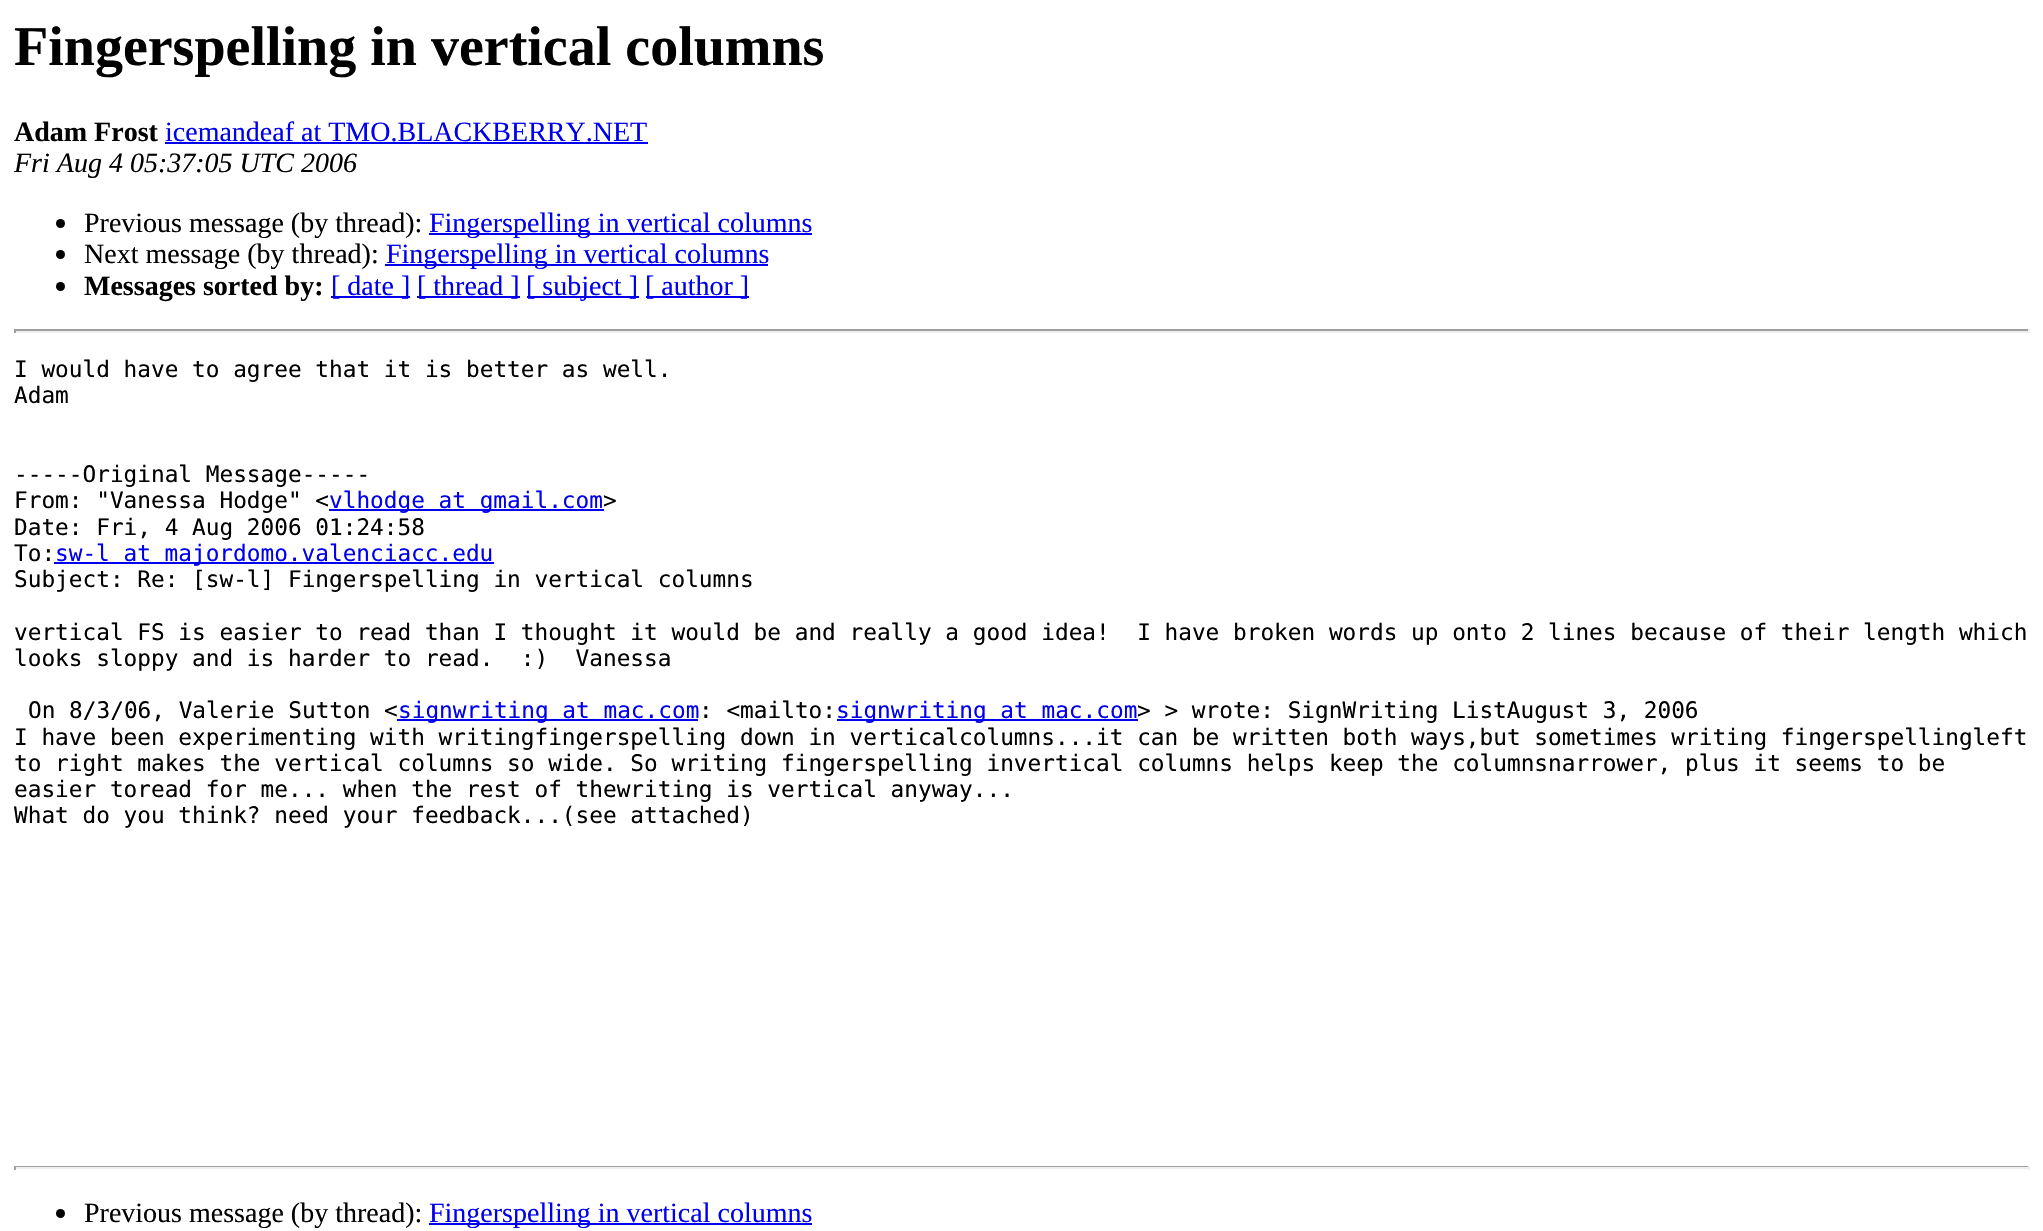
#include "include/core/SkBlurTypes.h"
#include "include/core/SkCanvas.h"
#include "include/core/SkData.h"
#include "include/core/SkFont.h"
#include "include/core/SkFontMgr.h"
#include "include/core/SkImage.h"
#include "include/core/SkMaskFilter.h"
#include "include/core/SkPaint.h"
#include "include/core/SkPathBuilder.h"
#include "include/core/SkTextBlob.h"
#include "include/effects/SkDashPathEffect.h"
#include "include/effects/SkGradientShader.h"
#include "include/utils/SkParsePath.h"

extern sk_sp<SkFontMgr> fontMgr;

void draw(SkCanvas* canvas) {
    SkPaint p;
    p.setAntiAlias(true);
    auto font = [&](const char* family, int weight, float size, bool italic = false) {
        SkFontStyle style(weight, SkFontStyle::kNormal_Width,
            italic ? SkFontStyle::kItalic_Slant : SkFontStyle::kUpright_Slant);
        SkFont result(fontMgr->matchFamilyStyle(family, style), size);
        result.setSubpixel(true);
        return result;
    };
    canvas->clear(0xFFFFFFFF);
    auto font1 = font("Liberation Serif", 700, 56);
    p.setColor(0xFF000000);
    canvas->drawString("Fingerspelling in vertical columns", 14, 65, font1, p);
    auto font2 = font("Liberation Serif", 700, 28);
    canvas->drawString("Adam Frost", 14, 141, font2, p);
    auto font3 = font("Liberation Serif", 400, 28);
    p.setColor(0xFF0000EE);
    canvas->drawString("icemandeaf at TMO.BLACKBERRY.NET", 165, 141, font3, p);
    canvas->drawRect(SkRect::MakeLTRB(165, 142, 648, 144), p);
    auto font4 = font("Liberation Serif", 400, 28, true);
    p.setColor(0xFF000000);
    canvas->drawString("Fri Aug 4 05:37:05 UTC 2006", 14, 172, font4, p);
    canvas->drawCircle(60.5f, 223.5f, 4.5f, p);
    canvas->drawString("Previous message (by thread):", 84, 232, font3, p);
    p.setColor(0xFF0000EE);
    canvas->drawRect(SkRect::MakeLTRB(429, 233, 812, 235), p);
    canvas->drawString("Fingerspelling in vertical columns", 429, 232, font3, p);
    p.setColor(0xFF000000);
    canvas->drawCircle(60.5f, 254.5f, 4.5f, p);
    canvas->drawString("Next message (by thread):", 84, 263, font3, p);
    p.setColor(0xFF0000EE);
    canvas->drawRect(SkRect::MakeLTRB(385, 264, 768, 266), p);
    canvas->drawString("Fingerspelling in vertical columns", 386, 263, font3, p);
    p.setColor(0xFF000000);
    canvas->drawCircle(60.5f, 286.5f, 4.5f, p);
    canvas->drawString("Messages sorted by:", 84, 295, font2, p);
    p.setColor(0xFF0000EE);
    canvas->drawRect(SkRect::MakeLTRB(331, 296, 410, 298), p);
    canvas->drawString("[ date ]", 331, 295, font3, p);
    canvas->drawRect(SkRect::MakeLTRB(417, 296, 520, 298), p);
    canvas->drawString("[ thread ]", 417, 295, font3, p);
    canvas->drawRect(SkRect::MakeLTRB(527, 296, 639, 298), p);
    canvas->drawString("[ subject ]", 526, 295, font3, p);
    canvas->drawRect(SkRect::MakeLTRB(646, 296, 749, 298), p);
    canvas->drawString("[ author ]", 645, 295, font3, p);
    {
        const struct { float l, t, r, b; SkColor color; } items[] = {
            {14, 329, 2030, 331, 0xFF9F9F9F},
            {2028, 329, 2030, 333, 0xFFEEEEEE},
            {14, 331, 2030, 333, 0xFFEEEEEE},
            {14, 329, 16, 333, 0xFF9F9F9F},
        };
        for (auto [l, t, r, b, color] : items) {
            p.setColor(color);
            canvas->drawRect(SkRect::MakeLTRB(l, t, r, b), p);
        }
    }
    auto font5 = font("DejaVu Sans Mono", 400, 22.75f);
    p.setColor(0xFF000000);
    {
        const struct { const char* s; float x, y; } items[] = {
            {"I would have to agree that it is better as well.", 14, 377},
            {"Adam", 14, 403},
            {"-----Original Message-----", 14, 482},
            {"From: \"Vanessa Hodge\" <", 14, 508},
        };
        for (auto [s, x, y] : items) {
            canvas->drawString(s, x, y, font5, p);
        }
    }
    p.setColor(0xFF0000EE);
    canvas->drawRect(SkRect::MakeLTRB(329, 509, 604, 511), p);
    canvas->drawString("vlhodge at gmail.com", 329, 508, font5, p);
    p.setColor(0xFF000000);
    {
        const struct { const char* s; float x, y; } items[] = {
            {">", 603, 508},
            {"Date: Fri, 4 Aug 2006 01:24:58", 14, 535},
            {"To:", 14, 561},
        };
        for (auto [s, x, y] : items) {
            canvas->drawString(s, x, y, font5, p);
        }
    }
    p.setColor(0xFF0000EE);
    canvas->drawRect(SkRect::MakeLTRB(54, 562, 494, 564), p);
    canvas->drawString("sw-l at majordomo.valenciacc.edu", 55, 561, font5, p);
    p.setColor(0xFF000000);
    {
        const struct { const char* s; float x, y; } items[] = {
            {"Subject: Re: [sw-l] Fingerspelling in vertical columns", 14, 587},
            {"vertical FS is easier to read than I thought it would be and really a good idea!  I have broken words up onto 2 lines because of their length which", 14, 640},
            {"looks sloppy and is harder to read.  :)  Vanessa", 14, 666},
            {"On 8/3/06, Valerie Sutton <", 28, 718},
        };
        for (auto [s, x, y] : items) {
            canvas->drawString(s, x, y, font5, p);
        }
    }
    p.setColor(0xFF0000EE);
    canvas->drawRect(SkRect::MakeLTRB(397, 719, 698, 721), p);
    canvas->drawString("signwriting at mac.com", 398, 718, font5, p);
    p.setColor(0xFF000000);
    canvas->drawString(": <mailto:", 699, 718, font5, p);
    p.setColor(0xFF0000EE);
    canvas->drawRect(SkRect::MakeLTRB(837, 719, 1138, 721), p);
    canvas->drawString("signwriting at mac.com", 836, 718, font5, p);
    p.setColor(0xFF000000);
    {
        const struct { const char* s; float x, y; } items[] = {
            {"> > wrote: SignWriting ListAugust 3, 2006", 1137, 718},
            {"I have been experimenting with writingfingerspelling down in verticalcolumns...it can be written both ways,but sometimes writing fingerspellingleft", 14, 745},
            {"to right makes the vertical columns so wide. So writing fingerspelling invertical columns helps keep the columnsnarrower, plus it seems to be", 14, 771},
            {"easier toread for me... when the rest of thewriting is vertical anyway...", 14, 797},
            {"What do you think? need your feedback...(see attached)", 14, 823},
        };
        for (auto [s, x, y] : items) {
            canvas->drawString(s, x, y, font5, p);
        }
    }
    {
        const struct { float l, t, r, b; SkColor color; } items[] = {
            {14, 1166, 2030, 1167, 0xFF9F9F9F},
            {2028, 1166, 2030, 1170, 0xFFEEEEEE},
            {14, 1167, 2030, 1169, 0xFFEEEEEE},
            {14, 1166, 16, 1170, 0xFF9F9F9F},
        };
        for (auto [l, t, r, b, color] : items) {
            p.setColor(color);
            canvas->drawRect(SkRect::MakeLTRB(l, t, r, b), p);
        }
    }
    p.setColor(0xFF000000);
    canvas->drawCircle(60.5f, 1213.5f, 4.5f, p);
    canvas->drawString("Previous message (by thread):", 84, 1222, font3, p);
    p.setColor(0xFF0000EE);
    canvas->drawRect(SkRect::MakeLTRB(429, 1223, 812, 1225), p);
    canvas->drawString("Fingerspelling in vertical columns", 429, 1222, font3, p);
}
